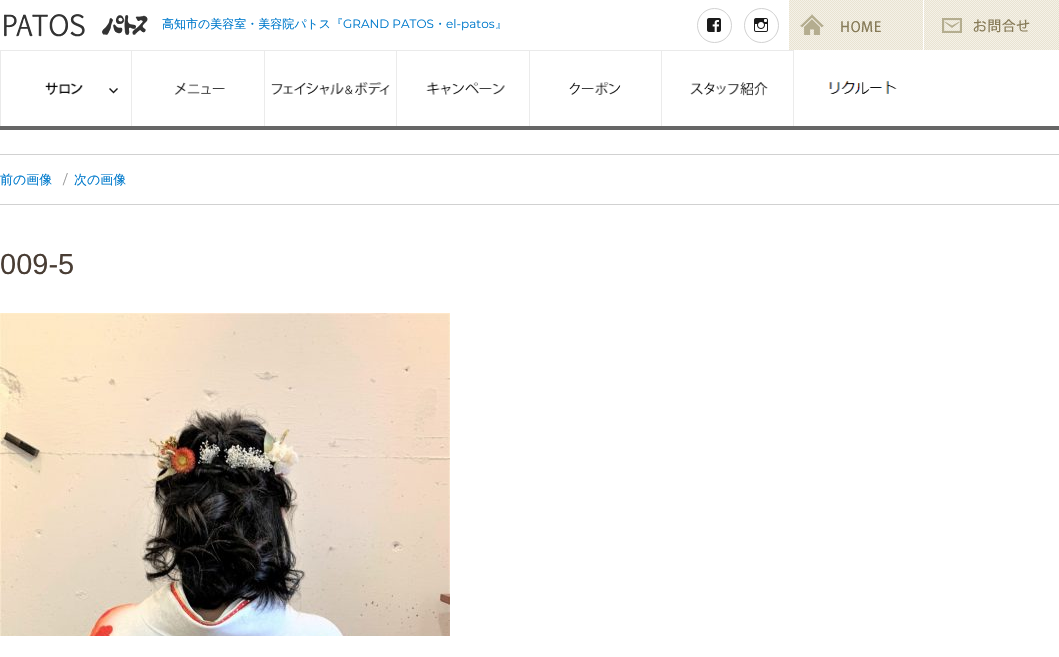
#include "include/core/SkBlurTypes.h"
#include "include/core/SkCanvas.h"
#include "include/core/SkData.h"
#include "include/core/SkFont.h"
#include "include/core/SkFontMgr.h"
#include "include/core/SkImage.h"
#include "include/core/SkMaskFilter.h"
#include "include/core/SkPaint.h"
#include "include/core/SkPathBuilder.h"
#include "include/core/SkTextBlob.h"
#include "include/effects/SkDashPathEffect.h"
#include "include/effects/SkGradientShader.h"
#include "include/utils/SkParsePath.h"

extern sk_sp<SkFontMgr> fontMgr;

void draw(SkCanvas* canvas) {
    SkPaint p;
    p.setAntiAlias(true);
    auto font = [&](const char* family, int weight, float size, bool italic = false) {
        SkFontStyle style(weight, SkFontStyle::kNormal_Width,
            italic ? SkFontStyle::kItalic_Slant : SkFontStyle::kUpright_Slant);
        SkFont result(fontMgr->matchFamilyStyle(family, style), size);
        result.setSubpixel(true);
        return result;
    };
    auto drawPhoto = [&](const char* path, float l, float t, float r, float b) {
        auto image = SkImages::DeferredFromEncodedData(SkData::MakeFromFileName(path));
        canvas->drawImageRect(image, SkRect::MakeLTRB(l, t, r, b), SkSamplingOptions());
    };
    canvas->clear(0xFFFFFFFF);
    drawPhoto("media/1.png", 4, 14, 148, 37);
    auto font1 = font("WenQuanYi Zen Hei", 500, 12);
    p.setColor(0xFF007ACC);
    canvas->drawString("高知市の美容室・美容院パトス『", 162, 28, font1, p);
    auto font2 = font("Montserrat", 400, 12);
    canvas->drawString("GRAND PATOS", 343, 28, font2, p);
    canvas->drawString("・", 434, 28, font1, p);
    canvas->drawString("el-patos", 446, 28, font2, p);
    canvas->drawString("』", 495, 28, font1, p);
    p.setStyle(SkPaint::kStroke_Style);
    p.setStrokeWidth(1);
    p.setColor(0xFFD1D1D1);
    canvas->drawCircle(714.5f, 25.5f, 17, p);
    drawPhoto("media/2.png", 707, 18, 721, 32);
    canvas->drawCircle(761.5f, 25.5f, 17, p);
    drawPhoto("media/3.png", 754, 18, 768, 32);
    drawPhoto("media/4.png", 789, 0, 923, 50);
    drawPhoto("media/5.png", 924, 0, 1059, 50);
    p.setStyle(SkPaint::kFill_Style);
    p.setColor(0xFF666666);
    canvas->drawRect(SkRect::MakeLTRB(0, 126, 1059, 130), p);
    drawPhoto("media/6.png", 0, 50, 132, 126);
    drawPhoto("media/7.png", 109, 88, 118, 94);
    drawPhoto("media/8.png", 132, 50, 265, 126);
    drawPhoto("media/9.png", 265, 50, 397, 126);
    drawPhoto("media/10.png", 397, 50, 530, 126);
    drawPhoto("media/11.png", 530, 50, 662, 126);
    drawPhoto("media/12.png", 662, 50, 794, 126);
    drawPhoto("media/13.png", 829, 81, 897, 94);
    p.setColor(0xFFD1D1D1);
    canvas->drawRect(SkRect::MakeLTRB(0, 154, 1059, 155), p);
    canvas->drawRect(SkRect::MakeLTRB(0, 204, 1059, 205), p);
    auto font3 = font("WenQuanYi Zen Hei", 500, 13);
    p.setColor(0xFF007ACC);
    canvas->drawString("前の画像", 0, 184, font3, p);
    auto font4 = font("Montserrat", 400, 13);
    p.setColor(0xFF959595);
    canvas->drawString("/", 63, 184, font4, p);
    p.setColor(0xFF007ACC);
    canvas->drawString("次の画像", 74, 184, font3, p);
    auto font5 = font("Liberation Sans", 400, 29);
    p.setColor(0xFF493D34);
    canvas->drawString("009-5", 0, 274, font5, p);
    drawPhoto("media/14.png", 0, 313, 450, 636);
}
